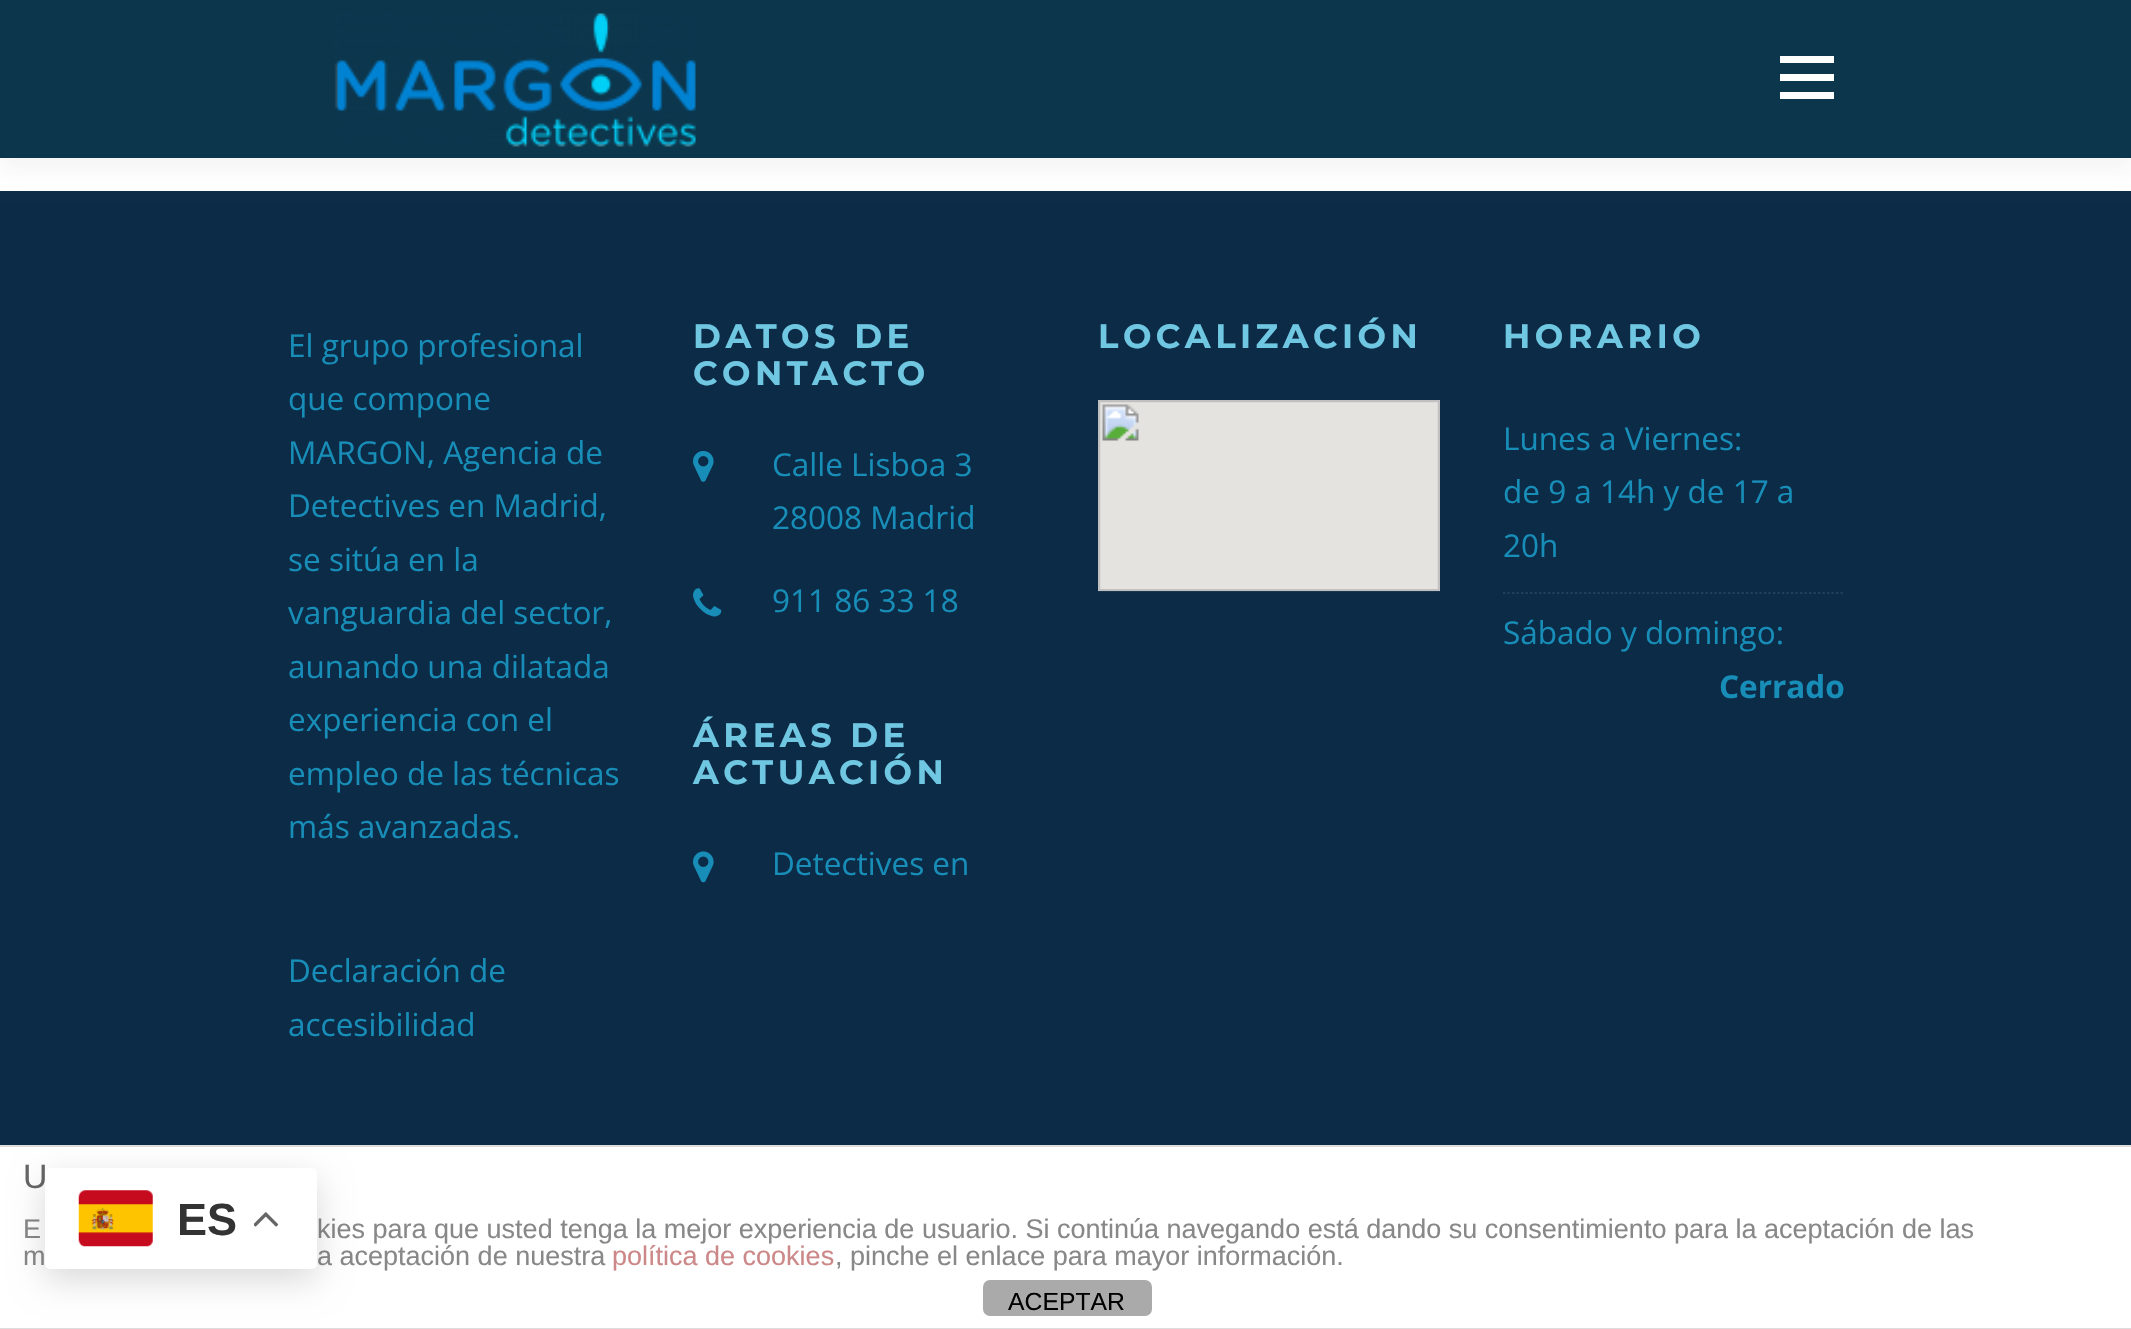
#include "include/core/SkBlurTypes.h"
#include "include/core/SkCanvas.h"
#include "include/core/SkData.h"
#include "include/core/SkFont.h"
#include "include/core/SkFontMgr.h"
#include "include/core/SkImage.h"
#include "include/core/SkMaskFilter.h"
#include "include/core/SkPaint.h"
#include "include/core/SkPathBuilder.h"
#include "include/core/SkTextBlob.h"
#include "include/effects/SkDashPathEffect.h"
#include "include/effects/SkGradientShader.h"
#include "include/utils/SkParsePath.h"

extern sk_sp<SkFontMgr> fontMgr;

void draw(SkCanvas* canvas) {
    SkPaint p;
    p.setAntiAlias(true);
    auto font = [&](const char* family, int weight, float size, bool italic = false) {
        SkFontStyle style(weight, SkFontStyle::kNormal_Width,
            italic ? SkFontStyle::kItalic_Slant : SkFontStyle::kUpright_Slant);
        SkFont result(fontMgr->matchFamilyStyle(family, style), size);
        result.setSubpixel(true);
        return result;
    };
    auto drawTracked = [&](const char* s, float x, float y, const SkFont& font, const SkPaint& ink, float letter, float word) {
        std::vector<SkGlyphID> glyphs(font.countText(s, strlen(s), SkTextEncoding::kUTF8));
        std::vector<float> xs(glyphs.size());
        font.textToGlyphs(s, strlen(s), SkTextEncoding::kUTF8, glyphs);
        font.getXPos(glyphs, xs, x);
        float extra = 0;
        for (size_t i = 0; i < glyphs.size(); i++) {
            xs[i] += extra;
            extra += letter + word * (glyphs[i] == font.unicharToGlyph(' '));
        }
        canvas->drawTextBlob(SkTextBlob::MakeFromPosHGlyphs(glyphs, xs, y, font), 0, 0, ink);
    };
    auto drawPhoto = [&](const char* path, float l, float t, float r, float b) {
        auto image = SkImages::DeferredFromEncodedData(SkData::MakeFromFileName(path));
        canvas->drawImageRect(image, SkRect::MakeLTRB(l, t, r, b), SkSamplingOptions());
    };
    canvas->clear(0xFFFFFFFF);
    p.setColor(0xFF0B2B47);
    canvas->drawRect(SkRect::MakeLTRB(0, 191, 2131, 1145), p);
    p.setColor(0x0F323232);
    p.setMaskFilter(SkMaskFilter::MakeBlur(kNormal_SkBlurStyle, 11));
    canvas->drawRect(SkRect::MakeLTRB(0, 11, 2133, 169), p);
    p.setMaskFilter(nullptr);
    p.setColor(0xFF0C364C);
    canvas->drawRect(SkRect::MakeLTRB(0, 0, 2131, 158), p);
    drawPhoto("media/1.png", 334, 13, 696, 147);
    {
        const struct { float l, t, r, b; SkColor color; } items[] = {
            {1780, 74, 1834, 81, 0xFFFFFFFF},
            {1780, 56, 1834, 63, 0xFFFFFFFF},
            {1780, 92, 1834, 99, 0xFFFFFFFF},
        };
        for (auto [l, t, r, b, color] : items) {
            p.setColor(color);
            canvas->drawRect(SkRect::MakeLTRB(l, t, r, b), p);
        }
    }
    auto font1 = font("Open Sans", 400, 31.5f);
    p.setColor(0xFF178DB7);
    {
        const struct { const char* s; float x, y; } items[] = {
            {"El grupo profesional", 288, 357},
            {"que compone", 288, 410},
            {"MARGON, Agencia de", 288, 464},
            {"Detectives en Madrid,", 288, 517},
            {"se sitúa en la", 288, 571},
            {"vanguardia del sector,", 288, 624},
            {"aunando una dilatada", 288, 678},
            {"experiencia con el", 288, 731},
            {"empleo de las técnicas", 288, 785},
            {"más avanzadas.", 288, 838},
            {"Declaración de", 288, 982},
            {"accesibilidad", 288, 1036},
        };
        for (auto [s, x, y] : items) {
            canvas->drawString(s, x, y, font1, p);
        }
    }
    auto font2 = font("Montserrat", 700, 33.75f);
    p.setColor(0xFF6FC7E2);
    drawTracked("DATOS DE", 693, 348, font2, p, 4.5f, 0);
    drawTracked("CONTACTO", 693, 385, font2, p, 4.5f, 0);
    drawPhoto("media/2.png", 693, 451, 714, 482);
    p.setColor(0xFF178DB7);
    canvas->drawString("Calle Lisboa 3", 772, 476, font1, p);
    canvas->drawString("28008 Madrid", 772, 529, font1, p);
    drawPhoto("media/3.png", 693, 588, 722, 617);
    canvas->drawString("911 86 33 18", 772, 612, font1, p);
    p.setColor(0xFF6FC7E2);
    drawTracked("ÁREAS DE", 693, 747, font2, p, 4.5f, 0);
    drawTracked("ACTUACIÓN", 693, 784, font2, p, 4.5f, 0);
    drawPhoto("media/4.png", 693, 851, 714, 883);
    p.setColor(0xFF178DB7);
    canvas->drawString("Detectives en", 772, 875, font1, p);
    p.setColor(0xFF6FC7E2);
    drawTracked("LOCALIZACIÓN", 1098, 348, font2, p, 4.5f, 0);
    drawPhoto("media/5.png", 1098, 400, 1440, 592);
    drawTracked("HORARIO", 1503, 348, font2, p, 4.5f, 0);
    p.setColor(0xFF178DB7);
    {
        const struct { const char* s; float x, y; } items[] = {
            {"Lunes a Viernes:", 1503, 450},
            {"de 9 a 14h y de 17 a", 1503, 503},
            {"20h", 1503, 557},
        };
        for (auto [s, x, y] : items) {
            canvas->drawString(s, x, y, font1, p);
        }
    }
    p.setStyle(SkPaint::kStroke_Style);
    p.setStrokeWidth(2.2f);
    p.setColor(0xFF234059);
    p.setPathEffect(SkDashPathEffect::Make({{2.25f, 2.25f}}, 0));
    canvas->drawPath(SkPathBuilder().moveTo(1503, 593).lineTo(1845, 593).detach(), p);
    p.setPathEffect(nullptr);
    p.setStyle(SkPaint::kFill_Style);
    p.setColor(0xFF178DB7);
    canvas->drawString("Sábado y domingo:", 1503, 644, font1, p);
    auto font3 = font("Open Sans", 700, 31.5f);
    canvas->drawString("Cerrado", 1719, 698, font3, p);
    p.setColor(0xFFDDDDDD);
    canvas->drawRect(SkRect::MakeLTRB(0, 1145, 2131, 1147), p);
    canvas->drawRect(SkRect::MakeLTRB(0, 1328, 2131, 1329), p);
    auto font4 = font("Liberation Sans", 400, 33.75f);
    p.setColor(0xFF666666);
    canvas->drawString("U", 23, 1188, font4, p);
    auto font5 = font("Liberation Sans", 400, 27);
    p.setColor(0xFF888888);
    {
        const struct { const char* s; float x, y; } items[] = {
            {"E", 23, 1238},
            {"kies para que usted tenga la mejor experiencia de usuario. Si continúa navegando está dando su consentimiento para la aceptación de las", 317, 1238},
            {"m", 23, 1265},
            {"a aceptación de nuestra", 317, 1265},
        };
        for (auto [s, x, y] : items) {
            canvas->drawString(s, x, y, font5, p);
        }
    }
    p.setColor(0xFFCC8888);
    canvas->drawString("política de cookies", 612, 1265, font5, p);
    p.setColor(0xFF888888);
    canvas->drawString(", pinche el enlace para mayor información.", 835, 1265, font5, p);
    p.setColor(0xFFAAAAAA);
    canvas->drawRoundRect(SkRect::MakeLTRB(983, 1280, 1152, 1316), 7, 7, p);
    auto font6 = font("Liberation Sans", 400, 24.75f);
    p.setColor(0xFF000000);
    canvas->drawString("ACEPTAR", 1008, 1310, font6, p);
    p.setColor(0x26000000);
    p.setMaskFilter(SkMaskFilter::MakeBlur(kNormal_SkBlurStyle, 17));
    canvas->drawRoundRect(SkRect::MakeLTRB(45, 1179, 317, 1280), 5, 5, p);
    p.setMaskFilter(nullptr);
    p.setColor(0xFFFFFFFF);
    canvas->drawRoundRect(SkRect::MakeLTRB(45, 1168, 317, 1269), 5, 5, p);
    drawPhoto("media/6.png", 78, 1190, 153, 1247);
    auto font7 = font("Liberation Sans", 700, 45);
    p.setColor(0xFF333333);
    canvas->drawString("ES", 177, 1235, font7, p);
    drawPhoto("media/7.png", 254, 1212, 279, 1227);
}
